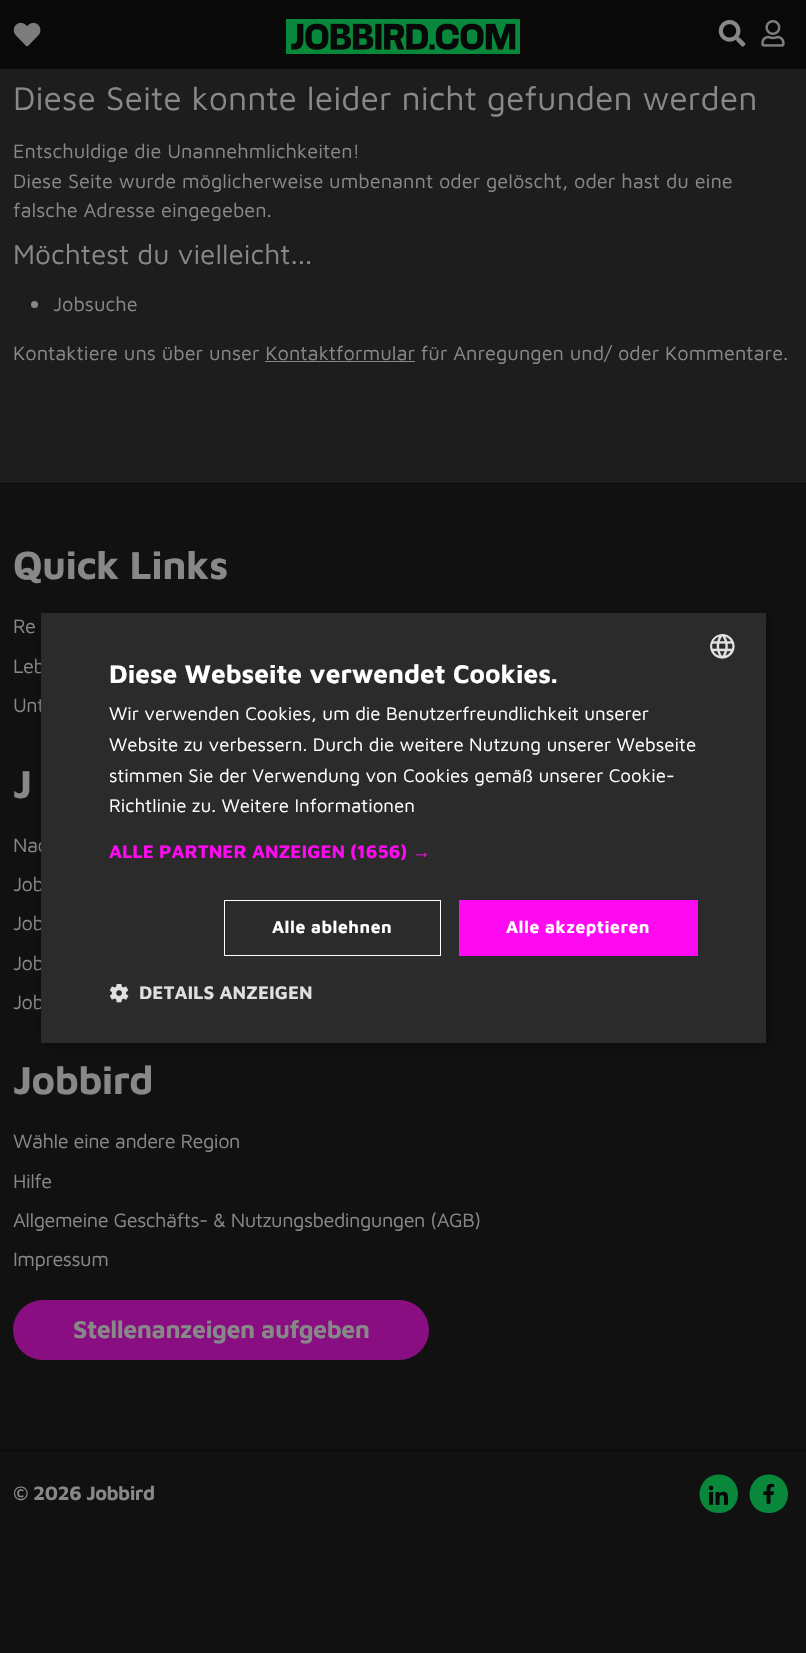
#include "include/core/SkBlurTypes.h"
#include "include/core/SkCanvas.h"
#include "include/core/SkData.h"
#include "include/core/SkFont.h"
#include "include/core/SkFontMgr.h"
#include "include/core/SkImage.h"
#include "include/core/SkMaskFilter.h"
#include "include/core/SkPaint.h"
#include "include/core/SkPathBuilder.h"
#include "include/core/SkTextBlob.h"
#include "include/effects/SkDashPathEffect.h"
#include "include/effects/SkGradientShader.h"
#include "include/utils/SkParsePath.h"

extern sk_sp<SkFontMgr> fontMgr;

void draw(SkCanvas* canvas) {
    SkPaint p;
    p.setAntiAlias(true);
    auto font = [&](const char* family, int weight, float size, bool italic = false) {
        SkFontStyle style(weight, SkFontStyle::kNormal_Width,
            italic ? SkFontStyle::kItalic_Slant : SkFontStyle::kUpright_Slant);
        SkFont result(fontMgr->matchFamilyStyle(family, style), size);
        result.setSubpixel(true);
        return result;
    };
    auto drawTracked = [&](const char* s, float x, float y, const SkFont& font, const SkPaint& ink, float letter, float word) {
        std::vector<SkGlyphID> glyphs(font.countText(s, strlen(s), SkTextEncoding::kUTF8));
        std::vector<float> xs(glyphs.size());
        font.textToGlyphs(s, strlen(s), SkTextEncoding::kUTF8, glyphs);
        font.getXPos(glyphs, xs, x);
        float extra = 0;
        for (size_t i = 0; i < glyphs.size(); i++) {
            xs[i] += extra;
            extra += letter + word * (glyphs[i] == font.unicharToGlyph(' '));
        }
        canvas->drawTextBlob(SkTextBlob::MakeFromPosHGlyphs(glyphs, xs, y, font), 0, 0, ink);
    };
    auto drawPhoto = [&](const char* path, float l, float t, float r, float b) {
        auto image = SkImages::DeferredFromEncodedData(SkData::MakeFromFileName(path));
        canvas->drawImageRect(image, SkRect::MakeLTRB(l, t, r, b), SkSamplingOptions());
    };
    canvas->clear(0xFF1D1D1D);
    p.setColor(0xFF090909);
    canvas->drawRect(SkRect::MakeLTRB(0, 0, 806, 69), p);
    drawPhoto("media/1.png", 13, 22, 41, 47);
    drawPhoto("media/2.png", 286, 19, 520, 54);
    drawPhoto("media/3.png", 718, 20, 746, 47);
    drawPhoto("media/4.png", 761, 20, 785, 47);
    auto font1 = font("Maven Pro", 400, 33.75f);
    p.setColor(0xFF888888);
    canvas->drawString("Diese Seite konnte leider nicht gefunden werden", 13, 110, font1, p);
    auto font2 = font("Maven Pro", 400, 20);
    {
        const struct { const char* s; float x, y; } items[] = {
            {"Entschuldige die Unannehmlichkeiten!", 13, 158},
            {"Diese Seite wurde möglicherweise umbenannt oder gelöscht, oder hast du eine", 13, 188},
            {"falsche Adresse eingegeben.", 13, 217},
        };
        for (auto [s, x, y] : items) {
            canvas->drawString(s, x, y, font2, p);
        }
    }
    auto font3 = font("Maven Pro", 400, 28);
    canvas->drawString("Möchtest du vielleicht...", 13, 264, font3, p);
    canvas->drawCircle(34.5f, 304.5f, 3.5f, p);
    canvas->drawString("Jobsuche", 53, 311, font2, p);
    canvas->drawString("Kontaktiere uns über unser Kontaktformular für Anregungen und/ oder Kommentare.", 13, 360, font2, p);
    {
        const struct { float l, t, r, b; SkColor color; } items[] = {
            {265, 361, 415, 362, 0xFF888888},
            {0, 484, 806, 1653, 0xFF111111},
            {0, 483, 806, 484, 0xFF090909},
        };
        for (auto [l, t, r, b, color] : items) {
            p.setColor(color);
            canvas->drawRect(SkRect::MakeLTRB(l, t, r, b), p);
        }
    }
    auto font4 = font("Maven Pro", 700, 40);
    p.setColor(0xFF888888);
    drawTracked("Quick Links", 13, 579, font4, p, -0.5f, 0);
    {
        const struct { const char* s; float x, y; } items[] = {
            {"Re", 13, 633},
            {"Leb", 13, 673},
            {"Unt", 13, 712},
        };
        for (auto [s, x, y] : items) {
            drawTracked(s, x, y, font2, p, -0.5f, 0);
        }
    }
    drawTracked("J", 13, 798, font4, p, -0.5f, 0);
    {
        const struct { const char* s; float x, y; } items[] = {
            {"Nac", 13, 852},
            {"Job", 13, 891},
            {"Job", 13, 930},
            {"Job", 13, 970},
            {"Job", 13, 1009},
        };
        for (auto [s, x, y] : items) {
            drawTracked(s, x, y, font2, p, -0.5f, 0);
        }
    }
    drawTracked("Jobbird", 13, 1094, font4, p, -0.5f, 0);
    {
        const struct { const char* s; float x, y; } items[] = {
            {"Wähle eine andere Region", 13, 1148},
            {"Hilfe", 13, 1188},
            {"Allgemeine Geschäfts- & Nutzungsbedingungen (AGB)", 13, 1227},
            {"Impressum", 13, 1266},
        };
        for (auto [s, x, y] : items) {
            drawTracked(s, x, y, font2, p, -0.5f, 0);
        }
    }
    p.setColor(0xFF880E81);
    canvas->drawRoundRect(SkRect::MakeLTRB(13, 1300, 429, 1360), 30, 30, p);
    auto font5 = font("Maven Pro", 700, 25);
    p.setColor(0xFF888888);
    drawTracked("Stellenanzeigen aufgeben", 73, 1338, font5, p, -0.5f, 0);
    p.setColor(0xFF090909);
    canvas->drawRect(SkRect::MakeLTRB(0, 1450, 806, 1451), p);
    auto font6 = font("Maven Pro", 700, 20);
    p.setColor(0xFF888888);
    drawTracked("© 2026 Jobbird", 13, 1500, font6, p, -0.5f, 0);
    p.setColor(0xFF09883B);
    canvas->drawPath(SkPathBuilder().moveTo(719, 1474.5f).cubicTo(737, 1474.5f, 745, 1498, 730.5f, 1509.5f).cubicTo(727, 1512, 723, 1513, 719, 1513).cubicTo(714.5f, 1513, 710.5f, 1512, 707, 1509.5f).cubicTo(692.5f, 1498, 700.5f, 1474.5f, 719, 1474.5f).close().detach(), p);
    drawPhoto("media/5.png", 708, 1485, 728, 1505);
    canvas->drawPath(SkPathBuilder().moveTo(769, 1474.5f).cubicTo(787, 1474.5f, 795, 1498, 780.5f, 1509.5f).cubicTo(777, 1512, 773, 1513, 769, 1513).cubicTo(764.5f, 1513, 760.5f, 1512, 757, 1509.5f).cubicTo(742.5f, 1498, 750.5f, 1474.5f, 769, 1474.5f).close().detach(), p);
    drawPhoto("media/6.png", 763, 1483, 775, 1504);
    p.setColor(0x59000000);
    p.setMaskFilter(SkMaskFilter::MakeBlur(kNormal_SkBlurStyle, 5));
    canvas->drawRect(SkRect::MakeLTRB(43, 615, 768, 1045), p);
    p.setMaskFilter(nullptr);
    p.setColor(0xFF2B2B2C);
    canvas->drawRect(SkRect::MakeLTRB(41, 613, 766, 1043), p);
    drawPhoto("media/7.png", 710, 634, 735, 659);
    auto font7 = font("Maven Pro", 700, 26.25f);
    p.setColor(0xFFFFFFFF);
    canvas->drawString("Diese Webseite verwendet Cookies.", 109, 683, font7, p);
    auto font8 = font("Maven Pro", 400, 18.75f);
    {
        const struct { const char* s; float x, y; } items[] = {
            {"Wir verwenden Cookies, um die Benutzerfreundlichkeit unserer", 109, 720},
            {"Website zu verbessern. Durch die weitere Nutzung unserer Webseite", 109, 751},
            {"stimmen Sie der Verwendung von Cookies gemäß unserer Cookie-", 109, 782},
            {"Richtlinie zu. Weitere Informationen", 109, 812},
        };
        for (auto [s, x, y] : items) {
            canvas->drawString(s, x, y, font8, p);
        }
    }
    auto font9 = font("Maven Pro", 700, 18.75f);
    p.setColor(0xFFFE0AF0);
    canvas->drawString("ALLE PARTNER ANZEIGEN (1656)", 109, 858, font9, p);
    auto font10 = font("Liberation Sans", 700, 18.75f);
    canvas->drawString("→", 412, 858, font10, p);
    p.setStyle(SkPaint::kStroke_Style);
    p.setStrokeWidth(1);
    p.setColor(0xFFFFFFFF);
    canvas->drawRect(SkRect::MakeLTRB(224.5f, 900.5f, 440.5f, 955.5f), p);
    auto font11 = font("Maven Pro", 700, 17.5f);
    p.setStyle(SkPaint::kFill_Style);
    drawTracked("Alle ablehnen", 272, 933, font11, p, 0.5f, 0);
    p.setColor(0xFFFE0AF0);
    canvas->drawRect(SkRect::MakeLTRB(459, 900, 698, 956), p);
    p.setColor(0xFFFFFFFF);
    drawTracked("Alle akzeptieren", 506, 933, font11, p, 0.5f, 0);
    drawPhoto("media/8.png", 110, 984, 129, 1003);
    p.setColor(0xFFDFDFDF);
    canvas->drawString("DETAILS ANZEIGEN", 139, 999, font9, p);
}
